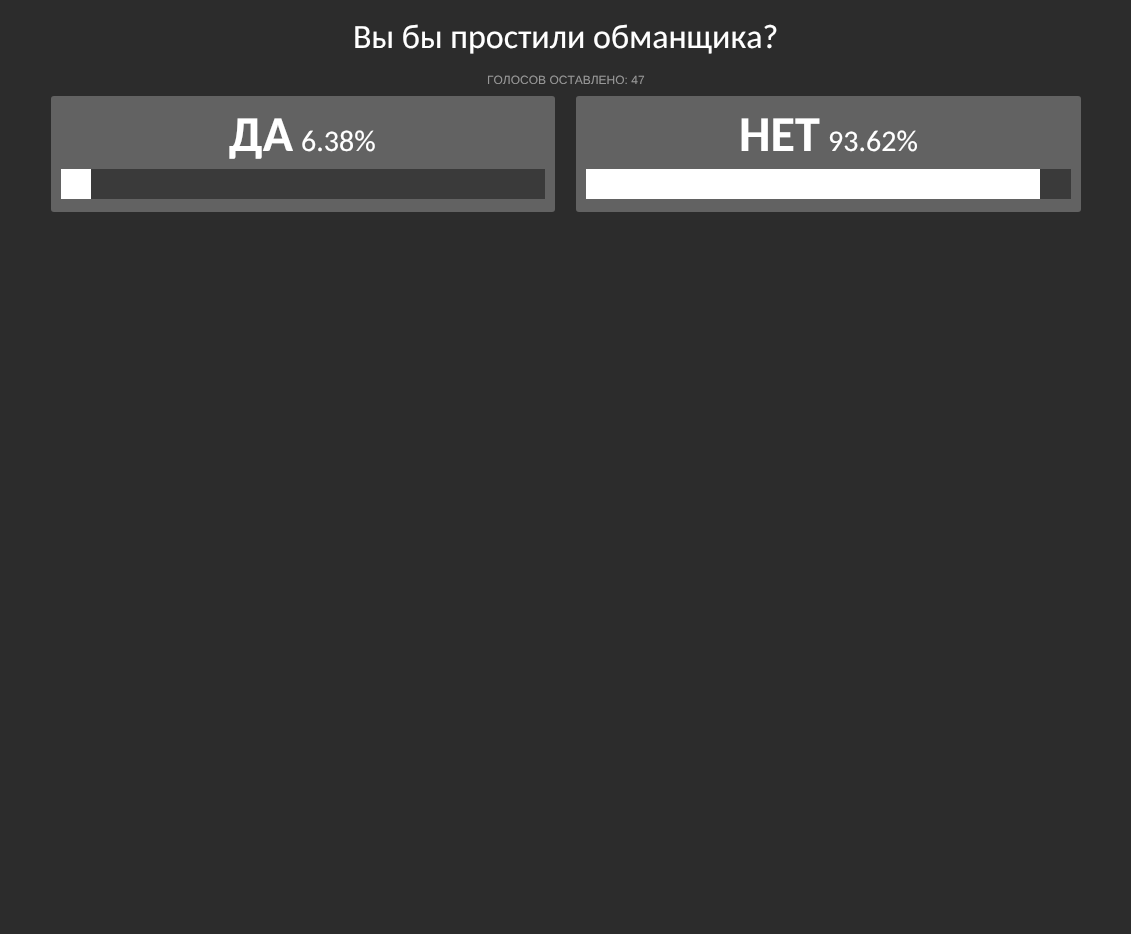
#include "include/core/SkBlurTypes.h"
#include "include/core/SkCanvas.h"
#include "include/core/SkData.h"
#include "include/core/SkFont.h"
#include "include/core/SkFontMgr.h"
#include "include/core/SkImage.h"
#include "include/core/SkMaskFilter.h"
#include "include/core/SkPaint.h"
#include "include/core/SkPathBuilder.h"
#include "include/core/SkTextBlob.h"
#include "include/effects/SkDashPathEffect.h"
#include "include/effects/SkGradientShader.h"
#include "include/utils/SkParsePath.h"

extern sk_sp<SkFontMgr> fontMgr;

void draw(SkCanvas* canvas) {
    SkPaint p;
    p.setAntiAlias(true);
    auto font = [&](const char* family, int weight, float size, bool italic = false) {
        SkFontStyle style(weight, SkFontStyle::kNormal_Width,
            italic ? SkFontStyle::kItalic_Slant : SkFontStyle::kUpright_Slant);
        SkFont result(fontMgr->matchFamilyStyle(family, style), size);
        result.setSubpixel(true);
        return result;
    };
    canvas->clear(0xFF2C2C2C);
    auto font1 = font("Carlito", 400, 34);
    p.setColor(0xFFFFFFFF);
    canvas->drawString("Вы бы простили обманщика?", 353, 48, font1, p);
    auto font2 = font("Liberation Sans", 400, 12);
    p.setColor(0xFF979797);
    canvas->drawString("ГОЛОСОВ ОСТАВЛЕНО: 47", 487, 84, font2, p);
    p.setColor(0xFF626262);
    canvas->drawRoundRect(SkRect::MakeLTRB(51, 96, 555, 212), 3, 3, p);
    auto font3 = font("Carlito", 700, 50);
    p.setColor(0xFFFFFFFF);
    canvas->drawString("ДА", 229, 151, font3, p);
    auto font4 = font("Carlito", 400, 30);
    canvas->drawString("6.38%", 301, 151, font4, p);
    p.setColor(0xFF3A3A3A);
    canvas->drawRect(SkRect::MakeLTRB(91, 169, 545, 199), p);
    p.setColor(0xFFFFFFFF);
    canvas->drawRect(SkRect::MakeLTRB(61, 169, 91, 199), p);
    p.setColor(0xFF626262);
    canvas->drawRoundRect(SkRect::MakeLTRB(576, 96, 1081, 212), 3, 3, p);
    p.setColor(0xFFFFFFFF);
    canvas->drawString("НЕТ", 739, 151, font3, p);
    canvas->drawString("93.62%", 828, 151, font4, p);
    p.setColor(0xFF3A3A3A);
    canvas->drawRect(SkRect::MakeLTRB(1040, 169, 1071, 199), p);
    p.setColor(0xFFFFFFFF);
    canvas->drawRect(SkRect::MakeLTRB(586, 169, 1040, 199), p);
}
